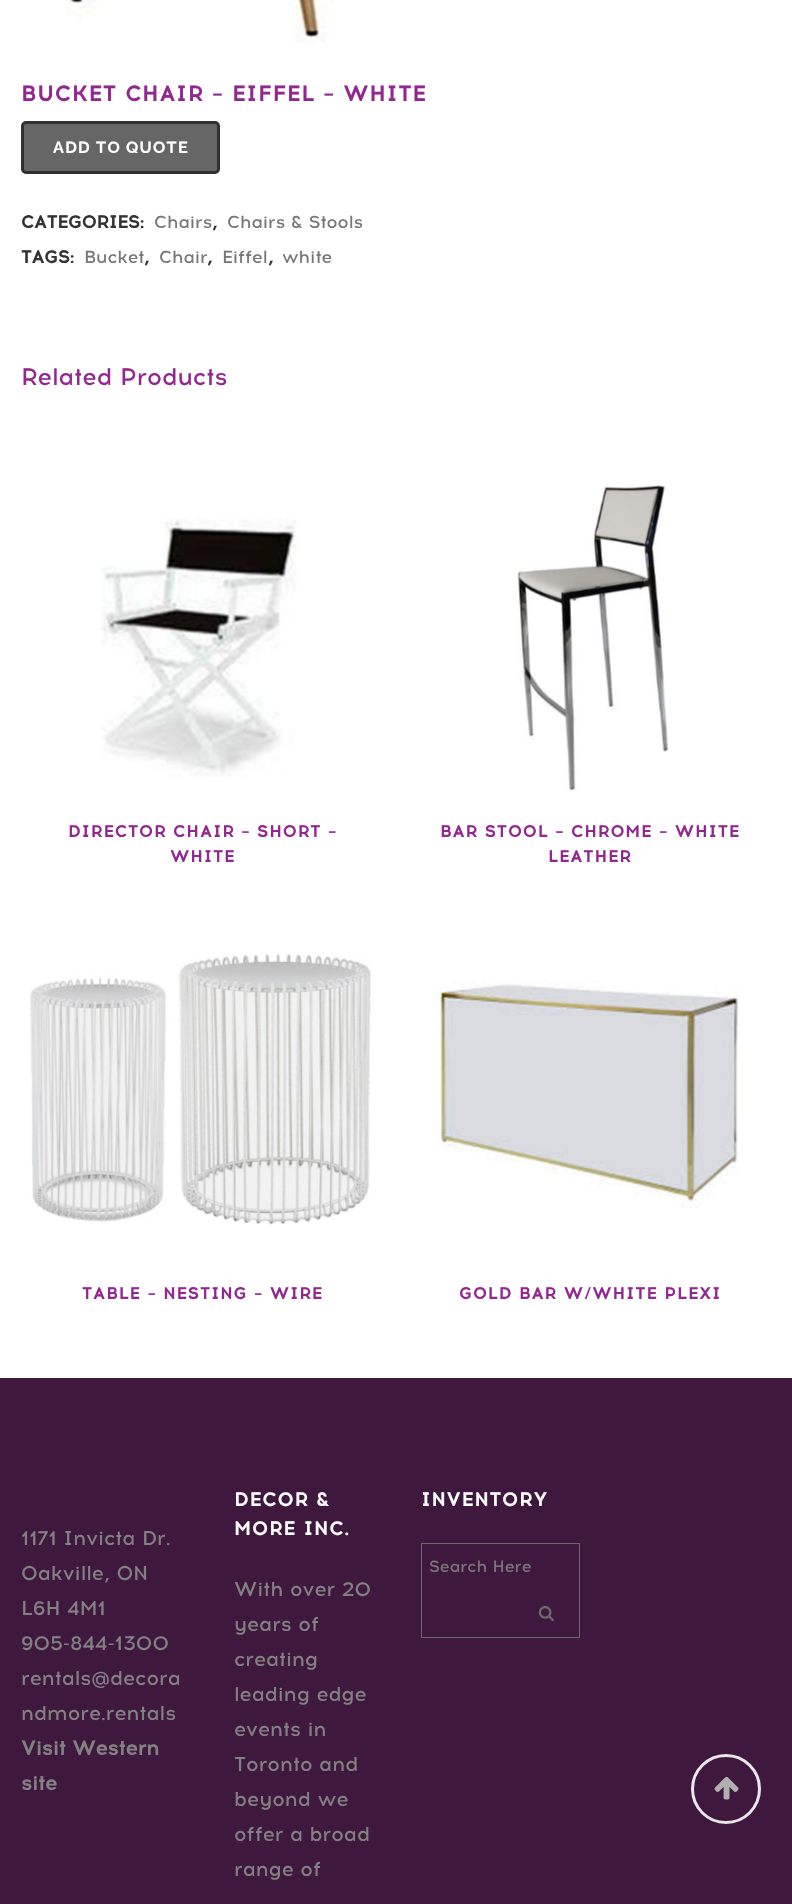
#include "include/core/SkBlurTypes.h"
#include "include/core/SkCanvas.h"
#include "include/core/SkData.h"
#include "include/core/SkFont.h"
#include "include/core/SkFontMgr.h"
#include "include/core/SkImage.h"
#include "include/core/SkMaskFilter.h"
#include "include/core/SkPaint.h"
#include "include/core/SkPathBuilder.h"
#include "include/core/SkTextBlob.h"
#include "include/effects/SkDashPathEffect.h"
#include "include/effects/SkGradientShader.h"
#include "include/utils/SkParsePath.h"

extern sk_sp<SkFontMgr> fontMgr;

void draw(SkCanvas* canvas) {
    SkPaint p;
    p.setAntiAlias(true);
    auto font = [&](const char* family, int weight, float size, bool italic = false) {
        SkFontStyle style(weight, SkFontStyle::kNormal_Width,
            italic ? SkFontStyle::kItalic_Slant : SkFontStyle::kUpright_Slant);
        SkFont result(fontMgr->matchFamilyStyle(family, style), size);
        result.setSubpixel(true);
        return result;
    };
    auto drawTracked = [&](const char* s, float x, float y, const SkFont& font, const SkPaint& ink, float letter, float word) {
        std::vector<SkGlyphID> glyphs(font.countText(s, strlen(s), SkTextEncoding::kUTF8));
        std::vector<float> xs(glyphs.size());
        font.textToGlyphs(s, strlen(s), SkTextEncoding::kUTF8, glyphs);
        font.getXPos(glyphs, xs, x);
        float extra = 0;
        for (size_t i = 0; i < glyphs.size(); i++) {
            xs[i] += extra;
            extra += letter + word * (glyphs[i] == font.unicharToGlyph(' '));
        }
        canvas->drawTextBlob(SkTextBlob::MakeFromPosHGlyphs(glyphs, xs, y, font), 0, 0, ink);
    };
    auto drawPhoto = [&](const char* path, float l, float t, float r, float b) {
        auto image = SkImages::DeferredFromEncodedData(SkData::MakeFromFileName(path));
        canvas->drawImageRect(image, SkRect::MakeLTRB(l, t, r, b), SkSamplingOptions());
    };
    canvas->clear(0xFFFFFFFF);
    drawPhoto("media/1.png", 66, 0, 334, 44);
    auto font1 = font("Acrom", 700, 21.25f);
    p.setColor(0xFF932790);
    drawTracked("BUCKET CHAIR – EIFFEL – WHITE", 21, 101, font1, p, 1.25f, 0);
    p.setColor(0xFF666666);
    canvas->drawRoundRect(SkRect::MakeLTRB(22.5f, 122.5f, 218.5f, 172.5f), 3.5f, 3.5f, p);
    p.setStyle(SkPaint::kStroke_Style);
    p.setStrokeWidth(3);
    p.setColor(0xFF303030);
    canvas->drawRoundRect(SkRect::MakeLTRB(22.5f, 122.5f, 218.5f, 172.5f), 3.5f, 3.5f, p);
    auto font2 = font("Raleway", 700, 16.25f);
    p.setStyle(SkPaint::kFill_Style);
    p.setColor(0xFFFFFFFF);
    drawTracked("ADD TO QUOTE", 53, 153, font2, p, 1.25f, 0);
    auto font3 = font("Acrom", 700, 17.5f);
    p.setColor(0xFF333333);
    canvas->drawString("CATEGORIES:", 21, 228, font3, p);
    auto font4 = font("Acrom", 500, 17.5f);
    p.setColor(0xFF777777);
    canvas->drawString("Chairs", 154, 228, font4, p);
    p.setColor(0xFF333333);
    canvas->drawString(",", 212, 228, font3, p);
    p.setColor(0xFF777777);
    canvas->drawString("Chairs & Stools", 227, 228, font4, p);
    p.setColor(0xFF333333);
    canvas->drawString("TAGS:", 21, 263, font3, p);
    p.setColor(0xFF777777);
    canvas->drawString("Bucket", 84, 263, font4, p);
    p.setColor(0xFF333333);
    canvas->drawString(",", 144, 263, font3, p);
    p.setColor(0xFF777777);
    canvas->drawString("Chair", 159, 263, font4, p);
    p.setColor(0xFF333333);
    canvas->drawString(",", 207, 263, font3, p);
    p.setColor(0xFF777777);
    canvas->drawString("Eiffel", 222, 263, font4, p);
    p.setColor(0xFF333333);
    canvas->drawString(",", 268, 263, font3, p);
    p.setColor(0xFF777777);
    canvas->drawString("white", 282, 263, font4, p);
    auto font5 = font("Acrom", 500, 23.75f);
    p.setColor(0xFF932790);
    canvas->drawString("Related Products", 21, 385, font5, p);
    drawPhoto("media/2.png", 101, 518, 297, 777);
    auto font6 = font("Acrom", 700, 16.25f);
    drawTracked("DIRECTOR CHAIR – SHORT –", 68, 837, font6, p, 1.25f, 0);
    drawTracked("WHITE", 170, 862, font6, p, 1.25f, 0);
    drawPhoto("media/3.png", 517, 485, 669, 791);
    drawTracked("BAR STOOL – CHROME – WHITE", 440, 837, font6, p, 1.25f, 0);
    drawTracked("LEATHER", 548, 862, font6, p, 1.25f, 0);
    drawPhoto("media/4.png", 30, 953, 371, 1225);
    drawTracked("TABLE – NESTING – WIRE", 82, 1299, font6, p, 1.25f, 0);
    drawPhoto("media/5.png", 435, 980, 739, 1208);
    drawTracked("GOLD BAR W/WHITE PLEXI", 459, 1299, font6, p, 1.25f, 0);
    p.setColor(0xFF3F183E);
    canvas->drawRect(SkRect::MakeLTRB(0, 1378, 792, 1904), p);
    auto font7 = font("Acrom", 500, 20);
    p.setColor(0xFF818181);
    {
        const struct { const char* s; float x, y; } items[] = {
            {"1171 Invicta Dr.", 21, 1545},
            {"Oakville, ON", 21, 1580},
            {"L6H 4M1", 21, 1615},
            {"905-844-1300", 21, 1650},
            {"rentals@decora", 21, 1685},
            {"ndmore.rentals", 21, 1720},
        };
        for (auto [s, x, y] : items) {
            canvas->drawString(s, x, y, font7, p);
        }
    }
    auto font8 = font("Acrom", 700, 20);
    canvas->drawString("Visit Western", 21, 1755, font8, p);
    canvas->drawString("site", 21, 1790, font8, p);
    auto font9 = font("Acrom", 700, 18.75f);
    p.setColor(0xFFFFFFFF);
    drawTracked("DECOR &", 234, 1506, font9, p, 1.25f, 0);
    drawTracked("MORE INC.", 234, 1535, font9, p, 1.25f, 0);
    p.setColor(0xFF818181);
    {
        const struct { const char* s; float x, y; } items[] = {
            {"With over 20", 234, 1596},
            {"years of", 234, 1631},
            {"creating", 234, 1666},
            {"leading edge", 234, 1701},
            {"events in", 234, 1736},
            {"Toronto and", 234, 1771},
            {"beyond we", 234, 1806},
            {"offer a broad", 234, 1841},
            {"range of", 234, 1876},
        };
        for (auto [s, x, y] : items) {
            canvas->drawString(s, x, y, font7, p);
        }
    }
    p.setColor(0xFFFFFFFF);
    drawTracked("INVENTORY", 421, 1506, font9, p, 1.25f, 0);
    p.setStyle(SkPaint::kStroke_Style);
    p.setStrokeWidth(1);
    p.setColor(0xFF6A6A6A);
    canvas->drawRect(SkRect::MakeLTRB(421.5f, 1543.5f, 579.5f, 1637.5f), p);
    auto font10 = font("Acrom", 500, 16.25f);
    p.setStyle(SkPaint::kFill_Style);
    p.setColor(0xFF777777);
    canvas->drawString("Search Here", 429, 1572, font10, p);
    drawPhoto("media/6.png", 538, 1606, 554, 1621);
    p.setStyle(SkPaint::kStroke_Style);
    p.setStrokeWidth(3);
    p.setColor(0xFFE8E8E8);
    canvas->drawCircle(726, 1789, 33.5f, p);
    drawPhoto("media/7.png", 714, 1776, 739, 1800);
}
